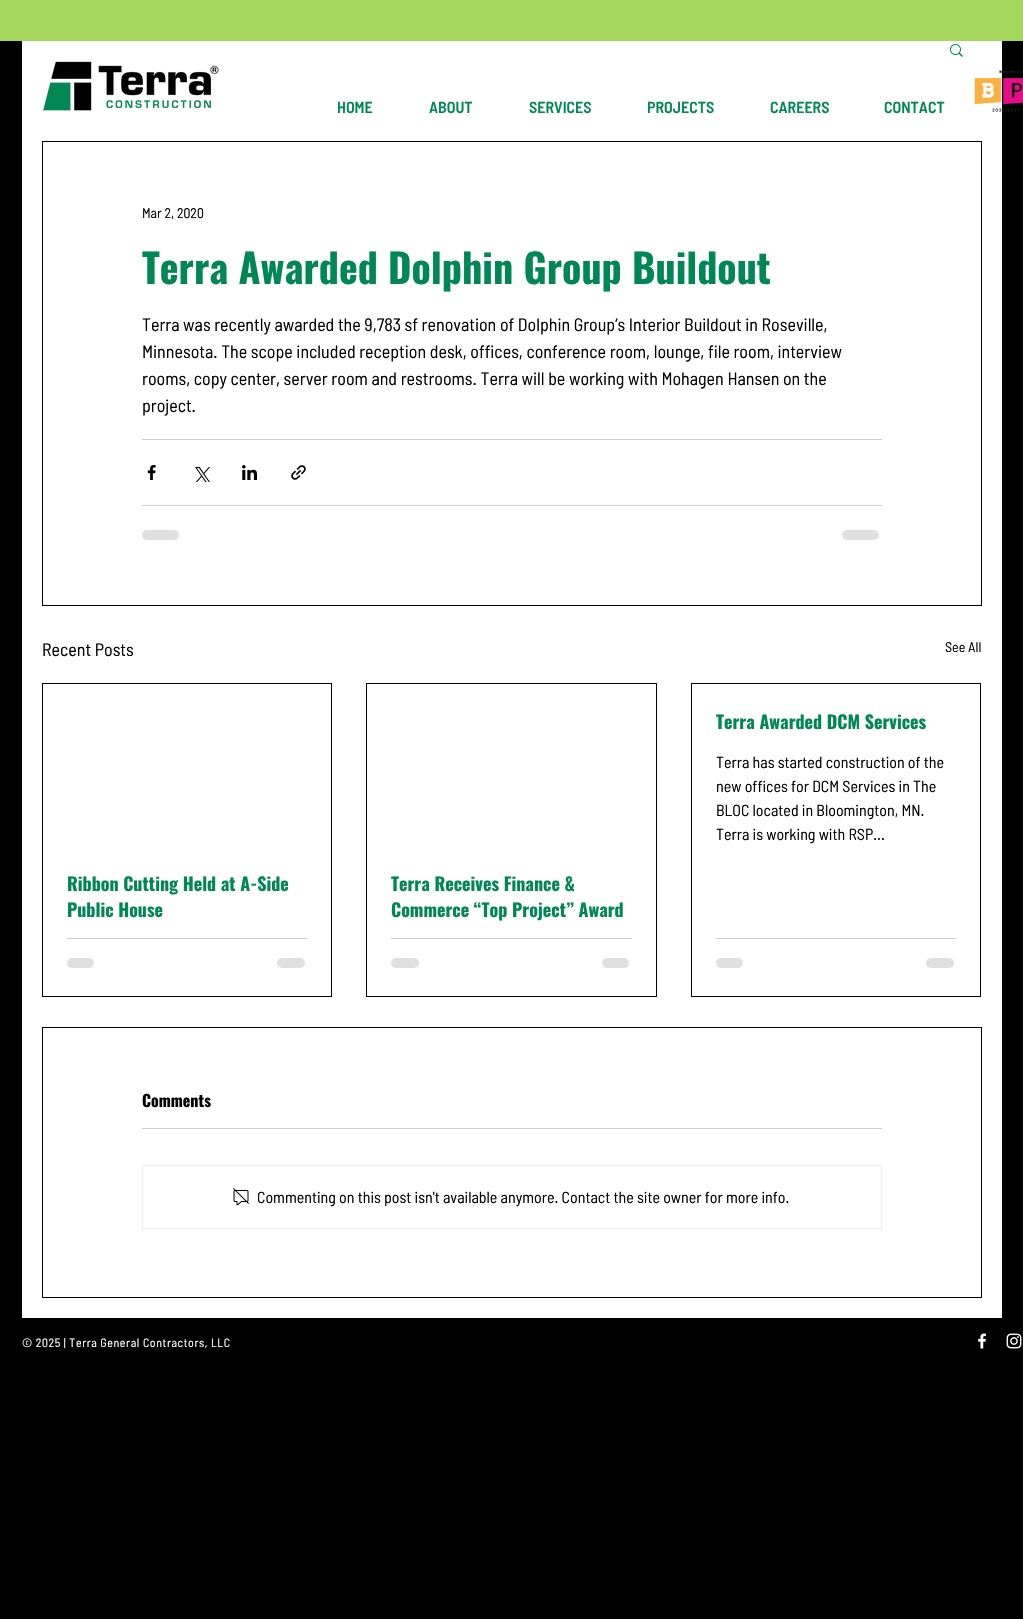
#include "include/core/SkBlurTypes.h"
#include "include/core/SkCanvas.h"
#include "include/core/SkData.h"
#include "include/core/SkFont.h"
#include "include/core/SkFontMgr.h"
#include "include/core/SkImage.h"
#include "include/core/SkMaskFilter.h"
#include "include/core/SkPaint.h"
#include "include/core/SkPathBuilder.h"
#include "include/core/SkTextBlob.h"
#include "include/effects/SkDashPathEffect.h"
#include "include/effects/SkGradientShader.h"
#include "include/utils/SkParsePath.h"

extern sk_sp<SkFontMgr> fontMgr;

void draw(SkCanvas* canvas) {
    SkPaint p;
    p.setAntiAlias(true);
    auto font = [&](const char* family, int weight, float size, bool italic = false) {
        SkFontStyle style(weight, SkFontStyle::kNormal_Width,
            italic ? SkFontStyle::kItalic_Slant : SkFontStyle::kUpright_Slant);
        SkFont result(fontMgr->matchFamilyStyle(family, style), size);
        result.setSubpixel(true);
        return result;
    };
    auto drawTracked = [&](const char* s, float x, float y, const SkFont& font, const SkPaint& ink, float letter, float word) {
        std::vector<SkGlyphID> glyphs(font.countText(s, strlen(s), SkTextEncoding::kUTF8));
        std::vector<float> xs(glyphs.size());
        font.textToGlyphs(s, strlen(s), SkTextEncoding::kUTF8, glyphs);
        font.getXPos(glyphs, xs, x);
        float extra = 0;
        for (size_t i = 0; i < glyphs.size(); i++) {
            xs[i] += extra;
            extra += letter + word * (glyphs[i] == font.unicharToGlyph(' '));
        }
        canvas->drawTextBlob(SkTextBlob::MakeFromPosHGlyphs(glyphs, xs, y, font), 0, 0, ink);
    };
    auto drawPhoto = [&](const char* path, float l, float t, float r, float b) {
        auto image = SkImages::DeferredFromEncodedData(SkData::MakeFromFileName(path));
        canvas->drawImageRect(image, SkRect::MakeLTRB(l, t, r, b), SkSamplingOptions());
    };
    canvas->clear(0xFF000000);
    p.setColor(0xFFA4D65E);
    canvas->drawRect(SkRect::MakeLTRB(0, 0, 1023, 41), p);
    p.setColor(0xFFFFFFFF);
    canvas->drawRect(SkRect::MakeLTRB(22, 41, 1002, 1318), p);
    drawPhoto("media/1.png", 43, 61, 219, 111);
    auto font1 = font("Barlow Semi Condensed", 600, 16);
    p.setColor(0xFF008755);
    {
        const struct { const char* s; float x, y; } items[] = {
            {"HOME", 337, 113},
            {"ABOUT", 429, 113},
            {"SERVICES", 529, 113},
            {"PROJECTS", 647, 113},
            {"CAREERS", 770, 113},
            {"CONTACT", 884, 113},
        };
        for (auto [s, x, y] : items) {
            canvas->drawString(s, x, y, font1, p);
        }
    }
    drawPhoto("media/2.png", 974, 70, 1023, 112);
    drawPhoto("media/3.png", 950, 44, 963, 57);
    p.setStyle(SkPaint::kStroke_Style);
    p.setStrokeWidth(1);
    p.setColor(0xFF000000);
    canvas->drawRect(SkRect::MakeLTRB(42.5f, 141.5f, 981.5f, 605.5f), p);
    auto font2 = font("Barlow Semi Condensed", 400, 14);
    p.setStyle(SkPaint::kFill_Style);
    canvas->drawString("Mar 2, 2020", 142, 218, font2, p);
    auto font3 = font("Oswald", 700, 40);
    p.setColor(0xFF008755);
    canvas->drawString("Terra Awarded Dolphin Group Buildout", 142, 284, font3, p);
    auto font4 = font("Barlow Semi Condensed", 400, 18);
    p.setColor(0xFF000000);
    {
        const struct { const char* s; float x, y; } items[] = {
            {"Terra was recently awarded the 9,783 sf renovation of Dolphin Group’s Interior Buildout in Roseville,", 142, 331},
            {"Minnesota. The scope included reception desk, offices, conference room, lounge, file room, interview", 142, 358},
            {"rooms, copy center, server room and restrooms. Terra will be working with Mohagen Hansen on the", 142, 385},
            {"project.", 142, 412},
        };
        for (auto [s, x, y] : items) {
            canvas->drawString(s, x, y, font4, p);
        }
    }
    p.setColor(0xFFCCCCCC);
    canvas->drawRect(SkRect::MakeLTRB(142, 439, 882, 440), p);
    drawPhoto("media/4.png", 147, 465, 156, 480);
    drawPhoto("media/5.png", 195, 467, 210, 482);
    drawPhoto("media/6.png", 242, 465, 257, 480);
    drawPhoto("media/7.png", 291, 465, 306, 480);
    canvas->drawRect(SkRect::MakeLTRB(142, 505, 882, 506), p);
    p.setColor(0xFFE0E0E0);
    canvas->drawRoundRect(SkRect::MakeLTRB(142, 530, 179, 540), 5, 5, p);
    canvas->drawRoundRect(SkRect::MakeLTRB(842, 530, 879, 540), 5, 5, p);
    p.setColor(0xFF000000);
    canvas->drawString("Recent Posts", 42, 656, font4, p);
    canvas->drawString("See All", 945, 652, font2, p);
    p.setStyle(SkPaint::kStroke_Style);
    canvas->drawRect(SkRect::MakeLTRB(691.5f, 683.5f, 980.5f, 996.5f), p);
    auto font5 = font("Oswald", 700, 18);
    p.setStyle(SkPaint::kFill_Style);
    p.setColor(0xFF008755);
    canvas->drawString("Terra Awarded DCM Services", 716, 729, font5, p);
    auto font6 = font("Barlow Semi Condensed", 400, 16);
    p.setColor(0xFF000000);
    {
        const struct { const char* s; float x, y; } items[] = {
            {"Terra has started construction of the", 716, 768},
            {"new offices for DCM Services in The", 716, 792},
            {"BLOC located in Bloomington, MN.", 716, 816},
            {"Terra is working with RSP...", 716, 840},
        };
        for (auto [s, x, y] : items) {
            canvas->drawString(s, x, y, font6, p);
        }
    }
    p.setColor(0xFFCCCCCC);
    canvas->drawRect(SkRect::MakeLTRB(716, 938, 956, 939), p);
    p.setColor(0xFFE0E0E0);
    canvas->drawRoundRect(SkRect::MakeLTRB(716, 958, 743, 968), 5, 5, p);
    canvas->drawRoundRect(SkRect::MakeLTRB(926, 958, 954, 968), 5, 5, p);
    p.setStyle(SkPaint::kStroke_Style);
    p.setColor(0xFF000000);
    canvas->drawRect(SkRect::MakeLTRB(42.5f, 683.5f, 331.5f, 996.5f), p);
    p.setStyle(SkPaint::kFill_Style);
    p.setColor(0xFF008755);
    canvas->drawString("Ribbon Cutting Held at A-Side", 67, 891, font5, p);
    canvas->drawString("Public House", 67, 917, font5, p);
    p.setColor(0xFFCCCCCC);
    canvas->drawRect(SkRect::MakeLTRB(67, 938, 307, 939), p);
    p.setColor(0xFFE0E0E0);
    canvas->drawRoundRect(SkRect::MakeLTRB(67, 958, 94, 968), 5, 5, p);
    canvas->drawRoundRect(SkRect::MakeLTRB(277, 958, 305, 968), 5, 5, p);
    p.setStyle(SkPaint::kStroke_Style);
    p.setColor(0xFF000000);
    canvas->drawRect(SkRect::MakeLTRB(366.5f, 683.5f, 656.5f, 996.5f), p);
    p.setStyle(SkPaint::kFill_Style);
    p.setColor(0xFF008755);
    canvas->drawString("Terra Receives Finance &", 391, 891, font5, p);
    canvas->drawString("Commerce “Top Project” Award", 391, 917, font5, p);
    p.setColor(0xFFCCCCCC);
    canvas->drawRect(SkRect::MakeLTRB(391, 938, 632, 939), p);
    p.setColor(0xFFE0E0E0);
    canvas->drawRoundRect(SkRect::MakeLTRB(391, 958, 419, 968), 5, 5, p);
    canvas->drawRoundRect(SkRect::MakeLTRB(602, 958, 629, 968), 5, 5, p);
    p.setStyle(SkPaint::kStroke_Style);
    p.setColor(0xFF000000);
    canvas->drawRect(SkRect::MakeLTRB(42.5f, 1027.5f, 981.5f, 1297.5f), p);
    auto font7 = font("Oswald", 700, 16);
    p.setStyle(SkPaint::kFill_Style);
    canvas->drawString("Comments", 142, 1107, font7, p);
    p.setColor(0xFFCCCCCC);
    canvas->drawRect(SkRect::MakeLTRB(142, 1128, 882, 1129), p);
    p.setStyle(SkPaint::kStroke_Style);
    p.setColor(0xFFF0F0F0);
    canvas->drawRect(SkRect::MakeLTRB(142.5f, 1165.5f, 881.5f, 1228.5f), p);
    drawPhoto("media/8.png", 233, 1188, 249, 1206);
    p.setStyle(SkPaint::kFill_Style);
    p.setColor(0xFF000000);
    canvas->drawString("Commenting on this post isn't available anymore. Contact the site owner for more info.", 257, 1203, font6, p);
    auto font8 = font("Barlow Semi Condensed", 400, 12);
    p.setColor(0xFFFFFFFF);
    drawTracked("© 2025 | Terra General Contractors, LLC", 22, 1347, font8, p, 0.6f, 0);
    drawPhoto("media/9.png", 978, 1333, 987, 1349);
    drawPhoto("media/10.png", 1006, 1333, 1022, 1349);
}
